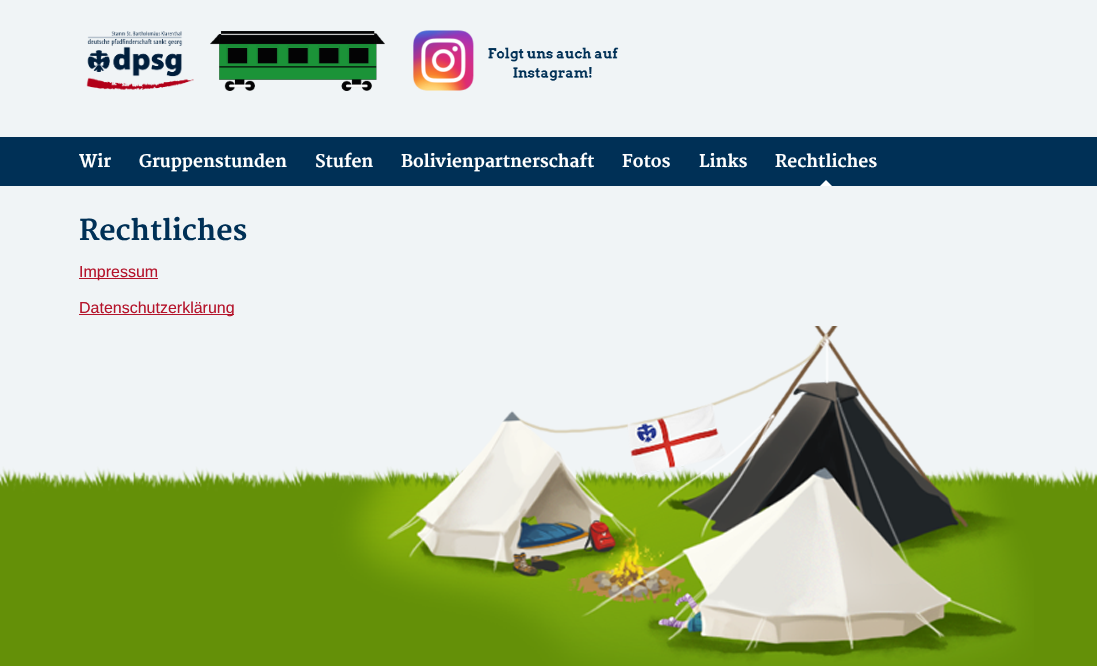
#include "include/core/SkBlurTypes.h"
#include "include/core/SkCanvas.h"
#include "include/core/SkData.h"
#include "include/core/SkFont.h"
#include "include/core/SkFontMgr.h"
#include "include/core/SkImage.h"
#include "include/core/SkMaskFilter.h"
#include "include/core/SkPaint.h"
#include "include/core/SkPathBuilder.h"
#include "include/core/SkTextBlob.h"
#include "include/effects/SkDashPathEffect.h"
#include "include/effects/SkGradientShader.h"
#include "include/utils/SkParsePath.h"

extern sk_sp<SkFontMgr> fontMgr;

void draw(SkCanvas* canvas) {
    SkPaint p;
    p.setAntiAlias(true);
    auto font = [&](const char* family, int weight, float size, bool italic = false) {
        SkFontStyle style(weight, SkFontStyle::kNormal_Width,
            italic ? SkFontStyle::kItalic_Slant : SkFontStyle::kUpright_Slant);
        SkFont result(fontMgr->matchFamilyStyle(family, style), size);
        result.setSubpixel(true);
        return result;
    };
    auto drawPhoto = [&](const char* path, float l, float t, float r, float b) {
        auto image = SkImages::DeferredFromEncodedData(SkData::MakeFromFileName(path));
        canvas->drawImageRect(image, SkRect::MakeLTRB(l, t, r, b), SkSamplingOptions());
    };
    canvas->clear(0xFFF0F4F6);
    drawPhoto("media/1.png", 86, 31, 194, 90);
    drawPhoto("media/2.png", 210, 31, 385, 91);
    drawPhoto("media/3.png", 413, 30, 619, 91);
    p.setColor(0xFF003056);
    canvas->drawRect(SkRect::MakeLTRB(0, 137, 1097, 186), p);
    auto font1 = font("Merriweather", 700, 17);
    p.setColor(0xFFFFFFFF);
    {
        const struct { const char* s; float x, y; } items[] = {
            {"Wir", 79, 167},
            {"Gruppenstunden", 139, 167},
            {"Stufen", 315, 167},
            {"Bolivienpartnerschaft", 401, 167},
            {"Fotos", 622, 167},
            {"Links", 699, 167},
            {"Rechtliches", 775, 167},
        };
        for (auto [s, x, y] : items) {
            canvas->drawString(s, x, y, font1, p);
        }
    }
    canvas->drawPath(SkPathBuilder().moveTo(832, 186).lineTo(820, 186).lineTo(826, 180).close().detach(), p);
    auto font2 = font("Merriweather", 700, 28);
    p.setColor(0xFF003056);
    canvas->drawString("Rechtliches", 79, 240, font2, p);
    p.setColor(0xFFB5142B);
    canvas->drawRect(SkRect::MakeLTRB(79, 278, 158, 279), p);
    auto font3 = font("Liberation Sans", 400, 16);
    canvas->drawString("Impressum", 79, 277, font3, p);
    canvas->drawRect(SkRect::MakeLTRB(79, 314, 234, 315), p);
    canvas->drawString("Datenschutzerklärung", 79, 313, font3, p);
    drawPhoto("media/4.png", 0, 462, 1097, 666);
    drawPhoto("media/5.png", 306, 326, 1034, 666);
}
